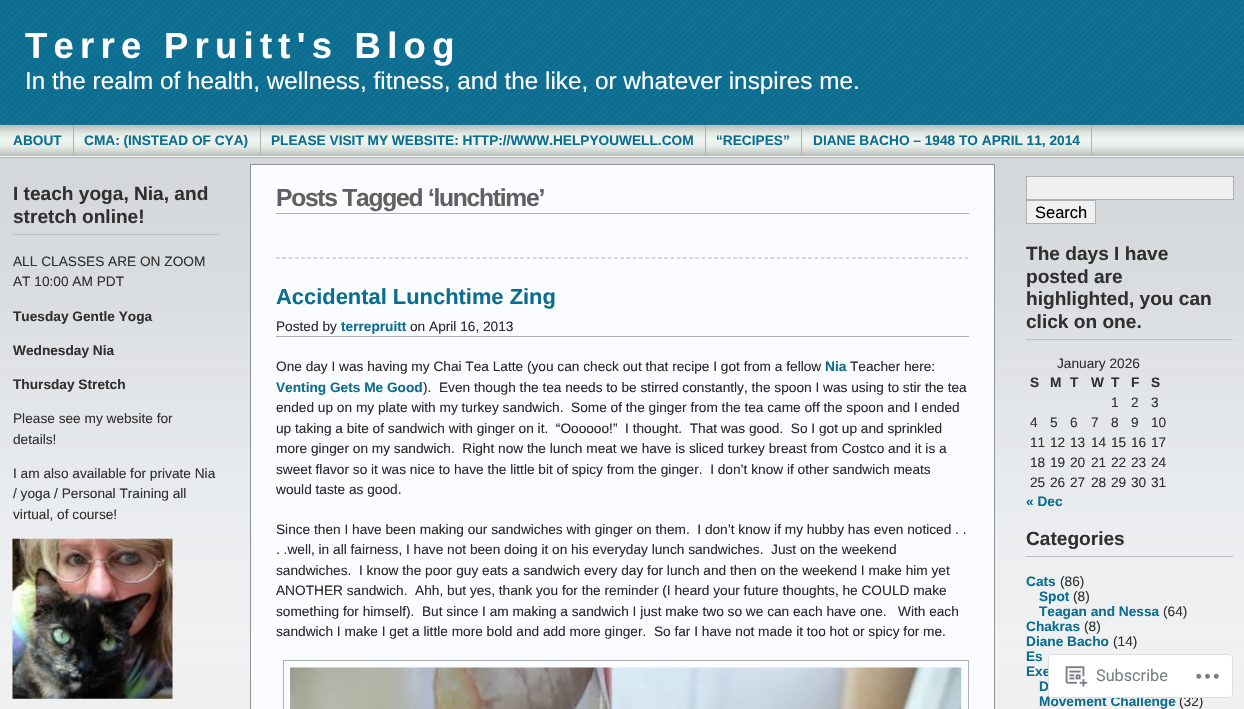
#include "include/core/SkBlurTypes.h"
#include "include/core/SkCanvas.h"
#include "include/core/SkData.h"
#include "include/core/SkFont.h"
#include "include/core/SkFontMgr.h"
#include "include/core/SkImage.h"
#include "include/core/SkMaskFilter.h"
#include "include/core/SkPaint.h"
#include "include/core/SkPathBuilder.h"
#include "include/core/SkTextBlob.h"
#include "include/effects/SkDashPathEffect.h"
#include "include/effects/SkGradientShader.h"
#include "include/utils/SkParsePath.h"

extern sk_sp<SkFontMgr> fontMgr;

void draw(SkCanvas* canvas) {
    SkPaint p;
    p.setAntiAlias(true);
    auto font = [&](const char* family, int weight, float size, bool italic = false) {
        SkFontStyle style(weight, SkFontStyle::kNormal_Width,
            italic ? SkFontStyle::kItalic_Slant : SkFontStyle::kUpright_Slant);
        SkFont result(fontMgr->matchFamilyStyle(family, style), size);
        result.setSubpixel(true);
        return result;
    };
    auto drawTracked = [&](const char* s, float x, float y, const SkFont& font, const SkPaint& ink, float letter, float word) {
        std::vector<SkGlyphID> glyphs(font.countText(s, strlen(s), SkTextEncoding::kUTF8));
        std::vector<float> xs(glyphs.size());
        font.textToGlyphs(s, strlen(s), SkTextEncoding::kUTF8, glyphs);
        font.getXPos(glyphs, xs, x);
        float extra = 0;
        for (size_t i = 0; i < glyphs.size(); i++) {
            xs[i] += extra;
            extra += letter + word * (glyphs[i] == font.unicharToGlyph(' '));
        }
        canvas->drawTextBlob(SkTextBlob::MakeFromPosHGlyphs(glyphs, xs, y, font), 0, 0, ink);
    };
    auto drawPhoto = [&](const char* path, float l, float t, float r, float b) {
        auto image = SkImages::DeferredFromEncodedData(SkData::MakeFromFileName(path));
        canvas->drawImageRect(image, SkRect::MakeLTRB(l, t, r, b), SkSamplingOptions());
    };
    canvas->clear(0xFFF0F0F0);
    drawPhoto("media/1.png", 0, 0, 1244, 675);
    auto font1 = font("Liberation Sans", 700, 36.5f);
    p.setColor(0xFFFFFFFF);
    drawTracked("Terre Pruitt's Blog", 25, 58, font1, p, 6.25f, 0);
    auto font2 = font("Liberation Sans", 400, 24.3f);
    canvas->drawString("In the realm of health, wellness, fitness, and the like, or whatever inspires me.", 25, 89, font2, p);
    p.setColor(0xFFB0B0B0);
    canvas->drawRect(SkRect::MakeLTRB(0, 157, 1244, 158), p);
    drawPhoto("media/2.png", 0, 125, 1244, 156);
    p.setColor(0xFFFFFFFF);
    canvas->drawRect(SkRect::MakeLTRB(0, 156, 1244, 157), p);
    auto font3 = font("Liberation Sans", 700, 13.68f);
    p.setColor(0xFF0B6D90);
    canvas->drawString("ABOUT", 13, 145, font3, p);
    p.setColor(0xFFB0B0B0);
    canvas->drawRect(SkRect::MakeLTRB(73, 125, 74, 155), p);
    p.setColor(0xFF0B6D90);
    canvas->drawString("CMA: (INSTEAD OF CYA)", 84, 145, font3, p);
    p.setColor(0xFFB0B0B0);
    canvas->drawRect(SkRect::MakeLTRB(260, 125, 261, 155), p);
    p.setColor(0xFF0B6D90);
    canvas->drawString("PLEASE VISIT MY WEBSITE: HTTP://WWW.HELPYOUWELL.COM", 271, 145, font3, p);
    p.setColor(0xFFB0B0B0);
    canvas->drawRect(SkRect::MakeLTRB(705, 125, 706, 155), p);
    p.setColor(0xFF0B6D90);
    canvas->drawString("“RECIPES”", 716, 145, font3, p);
    p.setColor(0xFFB0B0B0);
    canvas->drawRect(SkRect::MakeLTRB(801, 125, 802, 155), p);
    p.setColor(0xFF0B6D90);
    canvas->drawString("DIANE BACHO – 1948 TO APRIL 11, 2014", 813, 145, font3, p);
    p.setColor(0xFFB0B0B0);
    canvas->drawRect(SkRect::MakeLTRB(1091, 125, 1092, 155), p);
    p.setColor(0xFFBEBFC3);
    canvas->drawRect(SkRect::MakeLTRB(13, 234, 219, 235), p);
    auto font4 = font("Liberation Sans", 700, 19.1f);
    p.setColor(0xFF303030);
    canvas->drawString("I teach yoga, Nia, and", 13, 200, font4, p);
    canvas->drawString("stretch online!", 13, 223, font4, p);
    auto font5 = font("Liberation Sans", 400, 13.68f);
    canvas->drawString("ALL CLASSES ARE ON ZOOM", 13, 266, font5, p);
    canvas->drawString("AT 10:00 AM PDT", 13, 286, font5, p);
    {
        const struct { const char* s; float x, y; } items[] = {
            {"Tuesday Gentle Yoga", 13, 321},
            {"Wednesday Nia", 13, 355},
            {"Thursday Stretch", 13, 389},
        };
        for (auto [s, x, y] : items) {
            canvas->drawString(s, x, y, font3, p);
        }
    }
    {
        const struct { const char* s; float x, y; } items[] = {
            {"Please see my website for", 13, 423},
            {"details!", 13, 444},
            {"I am also available for private Nia", 13, 478},
            {"/ yoga / Personal Training all", 13, 498},
            {"virtual, of course!", 13, 519},
        };
        for (auto [s, x, y] : items) {
            canvas->drawString(s, x, y, font5, p);
        }
    }
    drawPhoto("media/3.png", 12, 538, 173, 699);
    p.setColor(0xFFFAFCFF);
    canvas->drawRect(SkRect::MakeLTRB(250.5f, 164.5f, 994.5f, 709.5f), p);
    p.setStyle(SkPaint::kStroke_Style);
    p.setStrokeWidth(1);
    p.setColor(0xFF909090);
    canvas->drawRect(SkRect::MakeLTRB(250.5f, 164.5f, 994.5f, 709.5f), p);
    p.setStyle(SkPaint::kFill_Style);
    p.setColor(0xFFB0B0B0);
    canvas->drawRect(SkRect::MakeLTRB(276, 213, 969, 214), p);
    auto font6 = font("Liberation Sans", 700, 24.6f);
    p.setColor(0xFF606060);
    drawTracked("Posts Tagged ‘lunchtime’", 276, 206, font6, p, -1.25f, 0);
    p.setStyle(SkPaint::kStroke_Style);
    p.setStrokeWidth(1.2f);
    p.setColor(0xFFB0B0B0);
    p.setPathEffect(SkDashPathEffect::Make({{3.75f, 2.51f}}, 0));
    canvas->drawPath(SkPathBuilder().moveTo(276, 258).lineTo(969, 258).detach(), p);
    p.setPathEffect(nullptr);
    auto font7 = font("Liberation Sans", 700, 21.9f);
    p.setStyle(SkPaint::kFill_Style);
    p.setColor(0xFF0B6D90);
    canvas->drawString("Accidental Lunchtime Zing", 276, 304, font7, p);
    p.setColor(0xFFB0B0B0);
    canvas->drawRect(SkRect::MakeLTRB(276, 336, 969, 337), p);
    p.setColor(0xFF2A2A2A);
    canvas->drawString("Posted by", 276, 331, font5, p);
    p.setColor(0xFF0B6D90);
    canvas->drawString("terrepruitt", 341, 331, font3, p);
    p.setColor(0xFF2A2A2A);
    canvas->drawString("on April 16, 2013", 410, 331, font5, p);
    canvas->drawString("One day I was having my Chai Tea Latte (you can check out that recipe I got from a fellow", 276, 371, font5, p);
    p.setColor(0xFF0B6D90);
    canvas->drawString("Nia", 825, 371, font3, p);
    p.setColor(0xFF2A2A2A);
    canvas->drawString("Teacher here:", 850, 371, font5, p);
    p.setColor(0xFF0B6D90);
    canvas->drawString("Venting Gets Me Good", 276, 392, font3, p);
    p.setColor(0xFF2A2A2A);
    {
        const struct { const char* s; float x, y; } items[] = {
            {").  Even though the tea needs to be stirred constantly, the spoon I was using to stir the tea", 423, 392},
            {"ended up on my plate with my turkey sandwich.  Some of the ginger from the tea came off the spoon and I ended", 276, 412},
            {"up taking a bite of sandwich with ginger on it.  “Oooooo!”  I thought.  That was good.  So I got up and sprinkled", 276, 433},
            {"more ginger on my sandwich.  Right now the lunch meat we have is sliced turkey breast from Costco and it is a", 276, 453},
            {"sweet flavor so it was nice to have the little bit of spicy from the ginger.  I don’t know if other sandwich meats", 276, 474},
            {"would taste as good.", 276, 494},
            {"Since then I have been making our sandwiches with ginger on them.  I don’t know if my hubby has even noticed . .", 276, 534},
            {". .well, in all fairness, I have not been doing it on his everyday lunch sandwiches.  Just on the weekend", 276, 554},
            {"sandwiches.  I know the poor guy eats a sandwich every day for lunch and then on the weekend I make him yet", 276, 575},
            {"ANOTHER sandwich.  Ahh, but yes, thank you for the reminder (I heard your future thoughts, he COULD make", 276, 595},
            {"something for himself).  But since I am making a sandwich I just make two so we can each have one.   With each", 276, 616},
            {"sandwich I make I get a little more bold and add more ginger.  So far I have not made it too hot or spicy for me.", 276, 636},
        };
        for (auto [s, x, y] : items) {
            canvas->drawString(s, x, y, font5, p);
        }
    }
    p.setStyle(SkPaint::kStroke_Style);
    p.setStrokeWidth(1);
    p.setColor(0xFFB0B0B0);
    canvas->drawRect(SkRect::MakeLTRB(283.5f, 660.5f, 968.5f, 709.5f), p);
    drawPhoto("media/4.png", 290, 667, 962, 709);
    p.setStyle(SkPaint::kFill_Style);
    p.setColor(0xFFF0F0F0);
    canvas->drawRect(SkRect::MakeLTRB(1026.5f, 176.5f, 1233.5f, 199.5f), p);
    p.setStyle(SkPaint::kStroke_Style);
    p.setColor(0xFFB0B0B0);
    canvas->drawRect(SkRect::MakeLTRB(1026.5f, 176.5f, 1233.5f, 199.5f), p);
    p.setStyle(SkPaint::kFill_Style);
    p.setColor(0xFFF0F0F0);
    canvas->drawRect(SkRect::MakeLTRB(1026.5f, 200.5f, 1095.5f, 223.5f), p);
    p.setStyle(SkPaint::kStroke_Style);
    p.setColor(0xFFB0B0B0);
    canvas->drawRect(SkRect::MakeLTRB(1026.5f, 200.5f, 1095.5f, 223.5f), p);
    auto font8 = font("Liberation Sans", 400, 16.5f);
    p.setStyle(SkPaint::kFill_Style);
    p.setColor(0xFF000000);
    canvas->drawString("Search", 1035, 218, font8, p);
    p.setColor(0xFFBEBFC3);
    canvas->drawRect(SkRect::MakeLTRB(1026, 339, 1233, 340), p);
    p.setColor(0xFF303030);
    {
        const struct { const char* s; float x, y; } items[] = {
            {"The days I have", 1026, 260},
            {"posted are", 1026, 283},
            {"highlighted, you can", 1026, 305},
            {"click on one.", 1026, 328},
        };
        for (auto [s, x, y] : items) {
            canvas->drawString(s, x, y, font4, p);
        }
    }
    canvas->drawString("January 2026", 1057, 368, font5, p);
    {
        const struct { const char* s; float x, y; } items[] = {
            {"S", 1030, 387},
            {"M", 1050, 387},
            {"T", 1070, 387},
            {"W", 1091, 387},
            {"T", 1111, 387},
            {"F", 1131, 387},
            {"S", 1151, 387},
        };
        for (auto [s, x, y] : items) {
            canvas->drawString(s, x, y, font3, p);
        }
    }
    {
        const struct { const char* s; float x, y; } items[] = {
            {"1", 1111, 407},
            {"2", 1131, 407},
            {"3", 1151, 407},
            {"4", 1030, 427},
            {"5", 1050, 427},
            {"6", 1070, 427},
            {"7", 1091, 427},
            {"8", 1111, 427},
            {"9", 1131, 427},
            {"10", 1151, 427},
            {"11", 1030, 447},
            {"12", 1050, 447},
            {"13", 1070, 447},
            {"14", 1091, 447},
            {"15", 1111, 447},
            {"16", 1131, 447},
            {"17", 1151, 447},
            {"18", 1030, 467},
            {"19", 1050, 467},
            {"20", 1070, 467},
            {"21", 1091, 467},
            {"22", 1111, 467},
            {"23", 1131, 467},
            {"24", 1151, 467},
            {"25", 1030, 487},
            {"26", 1050, 487},
            {"27", 1070, 487},
            {"28", 1091, 487},
            {"29", 1111, 487},
            {"30", 1131, 487},
            {"31", 1151, 487},
        };
        for (auto [s, x, y] : items) {
            canvas->drawString(s, x, y, font5, p);
        }
    }
    p.setColor(0xFF0B6D90);
    canvas->drawString("« Dec", 1026, 506, font3, p);
    p.setColor(0xFFBEBFC3);
    canvas->drawRect(SkRect::MakeLTRB(1026, 556, 1233, 557), p);
    p.setColor(0xFF303030);
    canvas->drawString("Categories", 1026, 545, font4, p);
    p.setColor(0xFF0B6D90);
    canvas->drawString("Cats", 1026, 586, font3, p);
    p.setColor(0xFF303030);
    canvas->drawString("(86)", 1060, 586, font5, p);
    p.setColor(0xFF0B6D90);
    canvas->drawString("Spot", 1039, 601, font3, p);
    p.setColor(0xFF303030);
    canvas->drawString("(8)", 1073, 601, font5, p);
    p.setColor(0xFF0B6D90);
    canvas->drawString("Teagan and Nessa", 1039, 616, font3, p);
    p.setColor(0xFF303030);
    canvas->drawString("(64)", 1163, 616, font5, p);
    p.setColor(0xFF0B6D90);
    canvas->drawString("Chakras", 1026, 631, font3, p);
    p.setColor(0xFF303030);
    canvas->drawString("(8)", 1084, 631, font5, p);
    p.setColor(0xFF0B6D90);
    canvas->drawString("Diane Bacho", 1026, 646, font3, p);
    p.setColor(0xFF303030);
    canvas->drawString("(14)", 1113, 646, font5, p);
    p.setColor(0xFF0B6D90);
    {
        const struct { const char* s; float x, y; } items[] = {
            {"Es", 1026, 661},
            {"Exe", 1026, 676},
            {"D", 1039, 691},
            {"Movement Challenge", 1039, 706},
        };
        for (auto [s, x, y] : items) {
            canvas->drawString(s, x, y, font3, p);
        }
    }
    p.setColor(0xFF303030);
    canvas->drawString("(32)", 1179, 706, font5, p);
    p.setColor(0xFAFFFFFF);
    canvas->drawRoundRect(SkRect::MakeLTRB(1048, 654, 1233, 698), 4, 4, p);
    p.setStyle(SkPaint::kStroke_Style);
    p.setColor(0xFADCDCDE);
    canvas->drawRoundRect(SkRect::MakeLTRB(1048.5f, 654.5f, 1232.5f, 697.5f), 3.5f, 3.5f, p);
    drawPhoto("media/5.png", 1065, 666, 1088, 687);
    auto font9 = font("Roboto", 400, 16.25f);
    p.setStyle(SkPaint::kFill_Style);
    p.setColor(0xFF7B7F84);
    canvas->drawString("Subscribe", 1096, 681, font9, p);
    drawPhoto("media/6.png", 1196, 673, 1219, 679);
}
